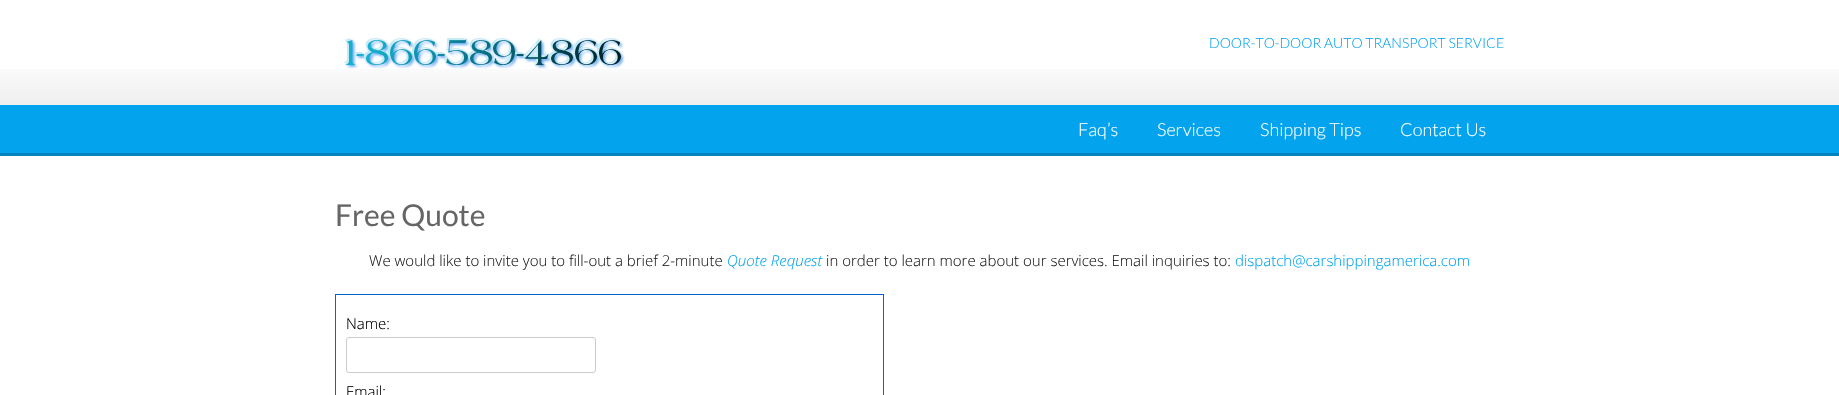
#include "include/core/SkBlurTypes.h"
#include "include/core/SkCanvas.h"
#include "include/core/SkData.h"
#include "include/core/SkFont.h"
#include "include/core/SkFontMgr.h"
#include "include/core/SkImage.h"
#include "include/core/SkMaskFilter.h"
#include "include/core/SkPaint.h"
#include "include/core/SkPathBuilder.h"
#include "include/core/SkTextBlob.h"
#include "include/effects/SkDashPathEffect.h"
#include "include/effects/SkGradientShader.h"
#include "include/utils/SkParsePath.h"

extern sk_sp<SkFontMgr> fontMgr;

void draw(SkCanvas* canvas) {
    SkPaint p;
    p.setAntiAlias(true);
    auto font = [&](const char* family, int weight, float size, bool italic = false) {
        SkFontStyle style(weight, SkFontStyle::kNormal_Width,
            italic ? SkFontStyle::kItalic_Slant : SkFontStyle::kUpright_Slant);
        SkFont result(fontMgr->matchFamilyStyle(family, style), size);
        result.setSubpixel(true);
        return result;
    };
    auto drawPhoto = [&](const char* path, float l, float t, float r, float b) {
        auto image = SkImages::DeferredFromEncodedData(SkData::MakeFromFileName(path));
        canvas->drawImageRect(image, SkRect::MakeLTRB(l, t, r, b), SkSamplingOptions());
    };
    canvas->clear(0xFFFFFFFF);
    drawPhoto("media/1.png", 0, 69, 1839, 105);
    drawPhoto("media/2.png", 344, 37, 625, 69);
    auto font1 = font("Lato", 300, 14);
    p.setColor(0xFF04A3ED);
    canvas->drawString("DOOR-TO-DOOR AUTO TRANSPORT SERVICE", 1209, 48, font1, p);
    canvas->drawRect(SkRect::MakeLTRB(0, 105, 1839, 153), p);
    p.setColor(0xFF0382BE);
    canvas->drawRect(SkRect::MakeLTRB(0, 153, 1839, 156), p);
    auto font2 = font("Lato", 300, 18);
    p.setColor(0xFFFFFFFF);
    {
        const struct { const char* s; float x, y; } items[] = {
            {"Faq’s", 1078, 136},
            {"Services", 1157, 136},
            {"Shipping Tips", 1260, 136},
            {"Contact Us", 1400, 136},
        };
        for (auto [s, x, y] : items) {
            canvas->drawString(s, x, y, font2, p);
        }
    }
    auto font3 = font("Lato", 400, 30);
    p.setColor(0xFF666666);
    canvas->drawString("Free Quote", 335, 226, font3, p);
    auto font4 = font("Open Sans", 300, 15);
    p.setColor(0xFF222222);
    canvas->drawString("We would like to invite you to fill-out a brief 2-minute", 369, 266, font4, p);
    auto font5 = font("Open Sans", 300, 15, true);
    p.setColor(0xFF04A3ED);
    canvas->drawString("Quote Request", 727, 266, font5, p);
    p.setColor(0xFF222222);
    canvas->drawString("in order to learn more about our services. Email inquiries to:", 826, 266, font4, p);
    p.setColor(0xFF04A3ED);
    canvas->drawString("dispatch@carshippingamerica.com", 1235, 266, font4, p);
    p.setStyle(SkPaint::kStroke_Style);
    p.setStrokeWidth(1);
    p.setColor(0xFF0066CC);
    canvas->drawRect(SkRect::MakeLTRB(335.5f, 294.5f, 883.5f, 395.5f), p);
    p.setStyle(SkPaint::kFill_Style);
    p.setColor(0xFF000000);
    canvas->drawString("Name:", 346, 329, font4, p);
    p.setStyle(SkPaint::kStroke_Style);
    p.setColor(0xFFCCCCCC);
    canvas->drawRoundRect(SkRect::MakeLTRB(346.5f, 337.5f, 595.5f, 372.5f), 2.5f, 2.5f, p);
    p.setStyle(SkPaint::kFill_Style);
    p.setColor(0xFF000000);
    canvas->drawString("Email:", 346, 397, font4, p);
}
